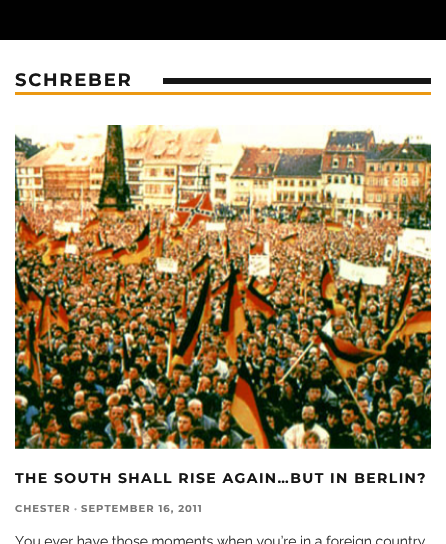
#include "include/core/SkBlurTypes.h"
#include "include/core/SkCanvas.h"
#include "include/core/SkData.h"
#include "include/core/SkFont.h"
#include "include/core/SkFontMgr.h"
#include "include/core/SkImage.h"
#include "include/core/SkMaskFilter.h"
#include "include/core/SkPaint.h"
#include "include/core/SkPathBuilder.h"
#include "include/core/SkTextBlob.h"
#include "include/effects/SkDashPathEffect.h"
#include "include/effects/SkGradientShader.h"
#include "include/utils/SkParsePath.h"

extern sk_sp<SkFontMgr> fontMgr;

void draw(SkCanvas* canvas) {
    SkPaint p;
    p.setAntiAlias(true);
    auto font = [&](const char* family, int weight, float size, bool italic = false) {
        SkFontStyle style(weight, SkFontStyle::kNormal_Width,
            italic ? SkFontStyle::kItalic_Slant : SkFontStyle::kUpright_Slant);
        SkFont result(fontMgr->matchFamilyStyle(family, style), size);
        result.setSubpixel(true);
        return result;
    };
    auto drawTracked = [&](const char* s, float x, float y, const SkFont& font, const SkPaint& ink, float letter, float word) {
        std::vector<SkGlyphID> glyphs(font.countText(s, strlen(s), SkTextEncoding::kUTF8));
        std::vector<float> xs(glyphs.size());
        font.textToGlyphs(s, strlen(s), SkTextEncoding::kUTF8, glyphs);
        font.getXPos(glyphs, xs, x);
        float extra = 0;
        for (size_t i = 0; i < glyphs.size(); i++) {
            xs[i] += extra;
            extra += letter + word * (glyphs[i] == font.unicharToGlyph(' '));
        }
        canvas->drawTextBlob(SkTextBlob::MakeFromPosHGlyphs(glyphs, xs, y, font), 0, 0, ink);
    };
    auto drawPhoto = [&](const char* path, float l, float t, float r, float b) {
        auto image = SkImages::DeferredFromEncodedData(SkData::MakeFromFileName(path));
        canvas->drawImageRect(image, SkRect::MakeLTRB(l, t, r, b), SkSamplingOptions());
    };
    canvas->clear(0xFFFFFFFF);
    p.setColor(0xFF010101);
    canvas->drawRect(SkRect::MakeLTRB(0, 0, 446, 40), p);
    p.setColor(0xFFEB9812);
    canvas->drawRect(SkRect::MakeLTRB(15, 92, 431, 95), p);
    auto font1 = font("Montserrat", 700, 18);
    p.setColor(0xFF161616);
    drawTracked("SCHREBER", 15, 86, font1, p, 1.75f, 0);
    canvas->drawRect(SkRect::MakeLTRB(163, 78, 431, 84), p);
    drawPhoto("media/1.png", 15, 125, 431, 449);
    auto font2 = font("Montserrat", 700, 14);
    drawTracked("THE SOUTH SHALL RISE AGAIN…BUT IN BERLIN?", 15, 483, font2, p, 1.4f, 0);
    auto font3 = font("Montserrat", 700, 10);
    p.setColor(0xFF777777);
    drawTracked("CHESTER", 15, 512, font3, p, 1, 0);
    p.setColor(0xFFA0A0A0);
    drawTracked("·", 74, 512, font3, p, 1, 0);
    p.setColor(0xFF777777);
    drawTracked("SEPTEMBER 16, 2011", 81, 512, font3, p, 1, 0);
    auto font4 = font("Raleway", 400, 14);
    p.setColor(0xFF2E2E2E);
    canvas->drawString("You ever have those moments when you’re in a foreign country", 15, 546, font4, p);
}
